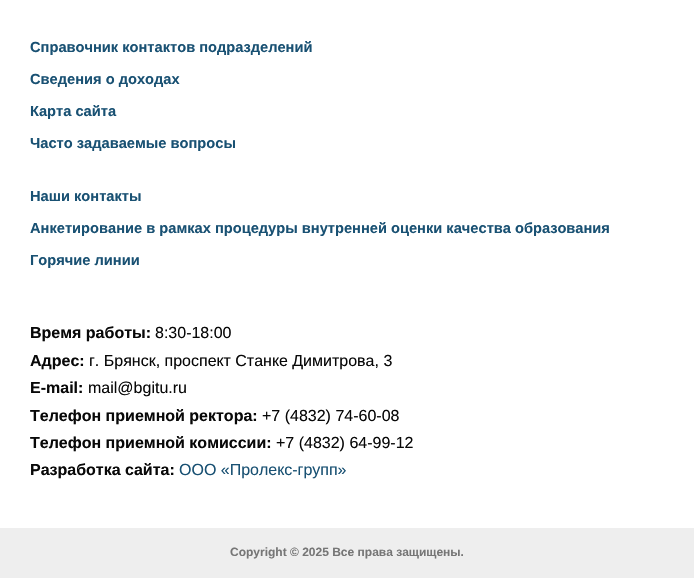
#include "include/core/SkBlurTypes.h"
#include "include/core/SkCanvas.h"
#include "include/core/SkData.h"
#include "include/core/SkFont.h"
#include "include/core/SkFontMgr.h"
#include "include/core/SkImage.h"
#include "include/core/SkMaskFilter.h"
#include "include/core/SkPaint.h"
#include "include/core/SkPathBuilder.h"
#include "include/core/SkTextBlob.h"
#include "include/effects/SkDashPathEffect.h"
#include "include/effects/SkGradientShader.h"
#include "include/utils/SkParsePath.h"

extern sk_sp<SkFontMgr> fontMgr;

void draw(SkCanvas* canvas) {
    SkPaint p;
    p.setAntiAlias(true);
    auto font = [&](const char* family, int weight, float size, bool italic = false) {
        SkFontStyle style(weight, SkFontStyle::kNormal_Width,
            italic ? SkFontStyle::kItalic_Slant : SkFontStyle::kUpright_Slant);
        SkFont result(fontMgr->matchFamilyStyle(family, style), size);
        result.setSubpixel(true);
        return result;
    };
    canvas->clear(0xFFFFFFFF);
    auto font1 = font("Liberation Sans", 700, 14.65f);
    p.setColor(0xFF195173);
    {
        const struct { const char* s; float x, y; } items[] = {
            {"Справочник контактов подразделений", 30, 52},
            {"Сведения о доходах", 30, 84},
            {"Карта сайта", 30, 116},
            {"Часто задаваемые вопросы", 30, 148},
            {"Наши контакты", 30, 201},
            {"Анкетирование в рамках процедуры внутренней оценки качества образования", 30, 233},
            {"Горячие линии", 30, 265},
        };
        for (auto [s, x, y] : items) {
            canvas->drawString(s, x, y, font1, p);
        }
    }
    auto font2 = font("Liberation Sans", 700, 16);
    p.setColor(0xFF080808);
    canvas->drawString("Время работы:", 30, 338, font2, p);
    auto font3 = font("Liberation Sans", 400, 16);
    canvas->drawString("8:30-18:00", 155, 338, font3, p);
    canvas->drawString("Адрес:", 30, 366, font2, p);
    canvas->drawString("г. Брянск, проспект Станке Димитрова, 3", 89, 366, font3, p);
    canvas->drawString("E-mail:", 30, 393, font2, p);
    canvas->drawString("mail@bgitu.ru", 88, 393, font3, p);
    canvas->drawString("Телефон приемной ректора:", 30, 421, font2, p);
    canvas->drawString("+7 (4832) 74-60-08", 262, 421, font3, p);
    canvas->drawString("Телефон приемной комиссии:", 30, 448, font2, p);
    canvas->drawString("+7 (4832) 64-99-12", 276, 448, font3, p);
    canvas->drawString("Разработка сайта:", 30, 475, font2, p);
    p.setColor(0xFF195173);
    canvas->drawString("ООО «Пролекс-групп»", 179, 475, font3, p);
    p.setColor(0xFFEEEEEE);
    canvas->drawRect(SkRect::MakeLTRB(0, 528, 694, 578), p);
    auto font4 = font("Liberation Sans", 700, 12);
    p.setColor(0xFF767676);
    canvas->drawString("Copyright © 2025 Все права защищены.", 230, 556, font4, p);
}
